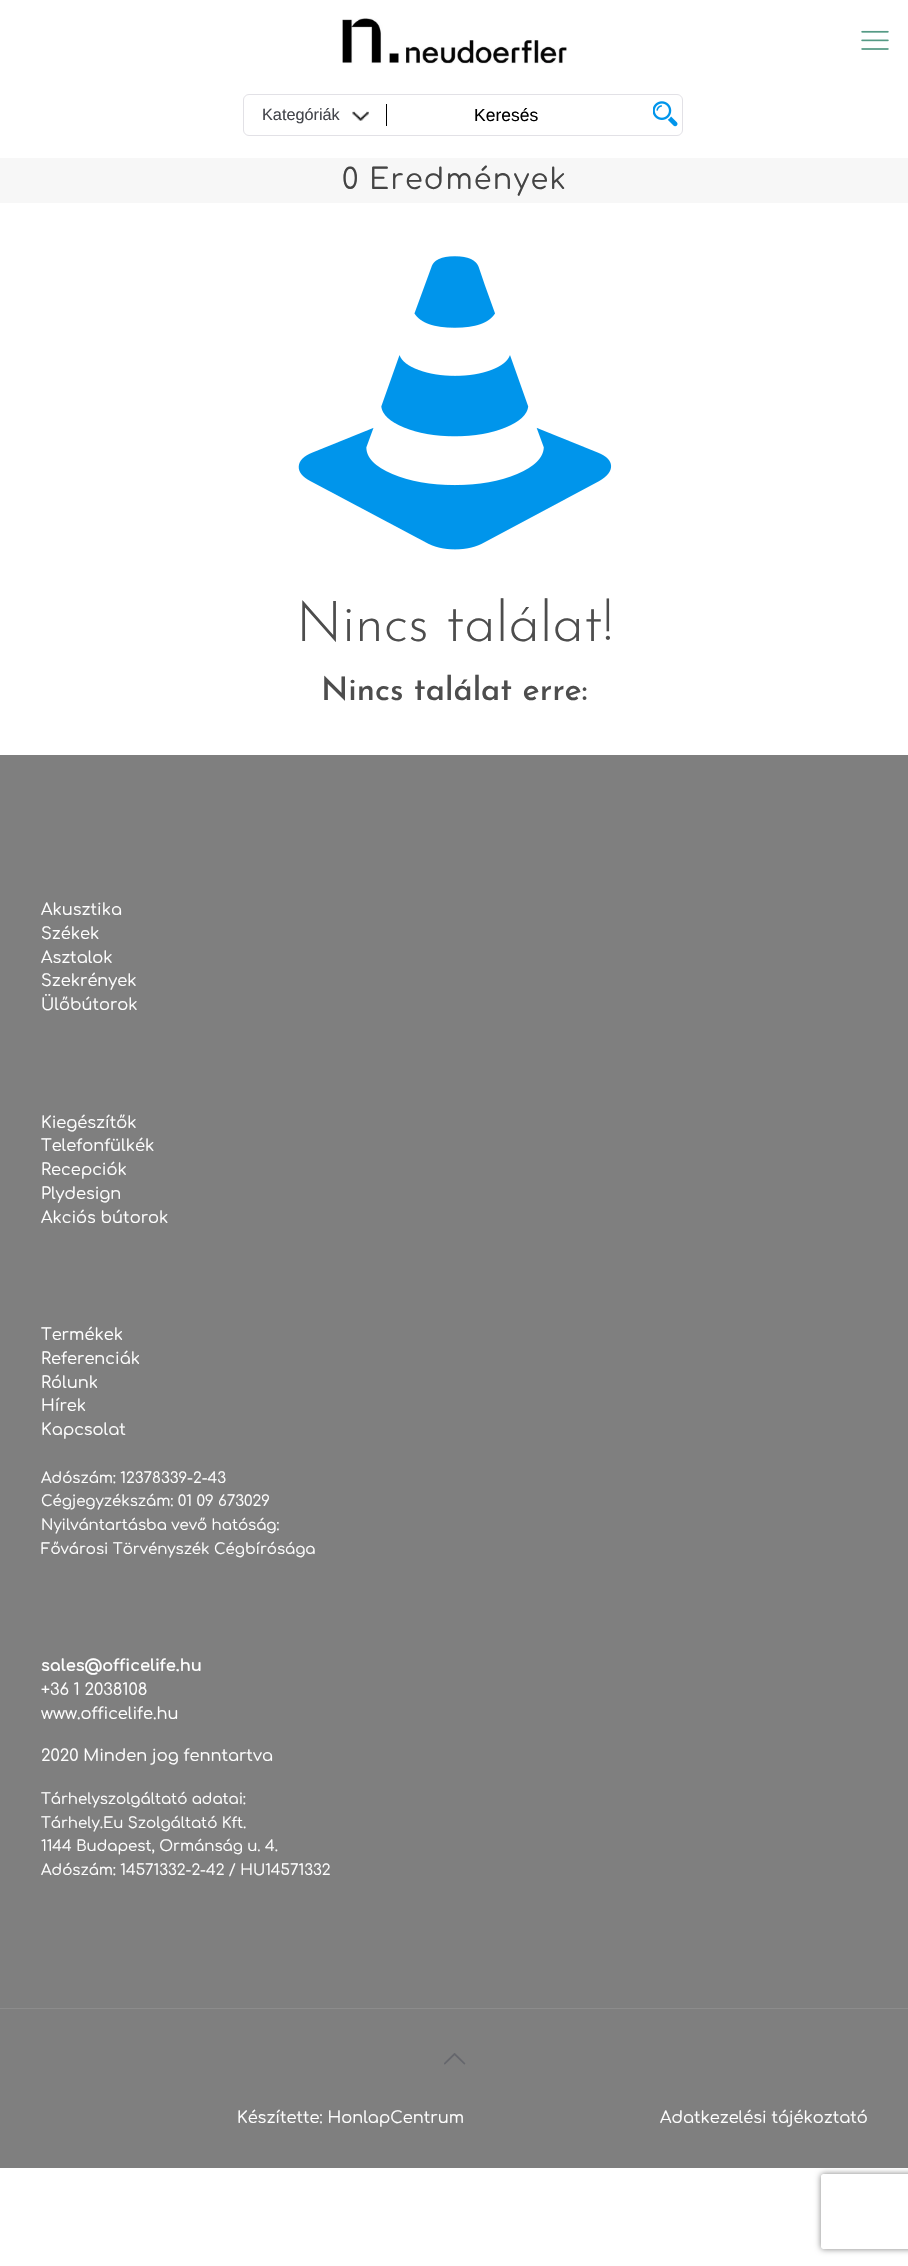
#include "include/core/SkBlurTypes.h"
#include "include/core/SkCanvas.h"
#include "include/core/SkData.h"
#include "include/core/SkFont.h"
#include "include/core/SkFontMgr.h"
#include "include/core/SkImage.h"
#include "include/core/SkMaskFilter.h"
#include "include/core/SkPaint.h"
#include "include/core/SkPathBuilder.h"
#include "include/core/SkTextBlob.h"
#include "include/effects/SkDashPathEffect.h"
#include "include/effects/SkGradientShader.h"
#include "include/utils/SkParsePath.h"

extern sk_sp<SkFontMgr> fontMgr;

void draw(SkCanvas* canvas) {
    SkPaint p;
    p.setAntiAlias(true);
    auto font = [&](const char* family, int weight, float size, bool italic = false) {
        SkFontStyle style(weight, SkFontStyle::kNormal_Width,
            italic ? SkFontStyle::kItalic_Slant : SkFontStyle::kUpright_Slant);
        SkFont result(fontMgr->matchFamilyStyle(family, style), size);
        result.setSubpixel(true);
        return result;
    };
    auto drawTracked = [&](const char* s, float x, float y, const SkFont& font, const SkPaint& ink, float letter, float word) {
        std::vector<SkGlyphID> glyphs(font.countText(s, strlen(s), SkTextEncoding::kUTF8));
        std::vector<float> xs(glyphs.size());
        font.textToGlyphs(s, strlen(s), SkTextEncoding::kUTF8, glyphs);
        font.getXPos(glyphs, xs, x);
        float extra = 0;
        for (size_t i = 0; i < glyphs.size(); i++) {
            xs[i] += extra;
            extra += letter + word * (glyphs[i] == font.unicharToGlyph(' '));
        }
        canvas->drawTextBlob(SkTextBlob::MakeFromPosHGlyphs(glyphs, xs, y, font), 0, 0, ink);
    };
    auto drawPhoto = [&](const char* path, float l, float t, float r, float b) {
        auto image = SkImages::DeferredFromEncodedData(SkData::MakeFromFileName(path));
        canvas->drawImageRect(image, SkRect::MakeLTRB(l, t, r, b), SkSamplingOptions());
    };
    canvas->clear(0xFFFFFFFF);
    drawPhoto("media/1.png", 342, 18, 567, 64);
    drawPhoto("media/2.png", 861, 30, 889, 50);
    p.setStyle(SkPaint::kStroke_Style);
    p.setStrokeWidth(1);
    p.setColor(0xFFE2E1E6);
    canvas->drawRoundRect(SkRect::MakeLTRB(243.5f, 94.5f, 682.5f, 135.5f), 5.5f, 5.5f, p);
    auto font1 = font("Liberation Sans", 400, 16.25f);
    p.setStyle(SkPaint::kFill_Style);
    p.setColor(0xFF43454B);
    canvas->drawString("Kategóriák", 262, 120, font1, p);
    drawPhoto("media/3.png", 352, 111, 369, 121);
    p.setColor(0xFF000000);
    canvas->drawRect(SkRect::MakeLTRB(386, 104, 387, 126), p);
    auto font2 = font("Liberation Sans", 400, 17.5f);
    canvas->drawString("Keresés", 474, 121, font2, p);
    drawPhoto("media/4.png", 653, 101, 678, 127);
    p.setColor(0xFFF7F7F7);
    canvas->drawRect(SkRect::MakeLTRB(0, 158, 908, 203), p);
    auto font3 = font("Comfortaa", 400, 28.75f);
    p.setColor(0xFF444444);
    drawTracked("0 Eredmények", 342, 189, font3, p, 1.25f, 0);
    drawPhoto("media/5.png", 298, 256, 612, 550);
    auto font4 = font("Josefin Sans", 300, 56.25f);
    p.setColor(0xFF4D4D4D);
    canvas->drawString("Nincs találat!", 296, 641, font4, p);
    auto font5 = font("Josefin Sans", 500, 32.5f);
    canvas->drawString("Nincs találat erre:", 321, 700, font5, p);
    p.setColor(0xFF7F7F7F);
    canvas->drawRect(SkRect::MakeLTRB(0, 755, 908, 2168), p);
    auto font6 = font("Comfortaa", 400, 16.25f);
    p.setColor(0xFFFFFFFF);
    {
        const struct { const char* s; float x, y; } items[] = {
            {"Akusztika", 41, 915},
            {"Székek", 41, 939},
            {"Asztalok", 41, 963},
            {"Szekrények", 41, 986},
            {"Ülőbútorok", 41, 1010},
            {"Kiegészítők", 41, 1128},
            {"Telefonfülkék", 41, 1151},
            {"Recepciók", 41, 1175},
            {"Plydesign", 41, 1199},
            {"Akciós bútorok", 41, 1223},
            {"Termékek", 41, 1340},
            {"Referenciák", 41, 1364},
            {"Rólunk", 41, 1388},
            {"Hírek", 41, 1411},
            {"Kapcsolat", 41, 1435},
        };
        for (auto [s, x, y] : items) {
            canvas->drawString(s, x, y, font6, p);
        }
    }
    auto font7 = font("Comfortaa", 400, 15);
    {
        const struct { const char* s; float x, y; } items[] = {
            {"Adószám: 12378339-2-43", 41, 1483},
            {"Cégjegyzékszám: 01 09 673029", 41, 1506},
            {"Nyilvántartásba vevő hatóság:", 41, 1530},
            {"Fővárosi Törvényszék Cégbírósága", 41, 1554},
        };
        for (auto [s, x, y] : items) {
            canvas->drawString(s, x, y, font7, p);
        }
    }
    auto font8 = font("Comfortaa", 700, 16.25f);
    canvas->drawString("sales@officelife.hu", 41, 1671, font8, p);
    {
        const struct { const char* s; float x, y; } items[] = {
            {"+36 1 2038108", 41, 1695},
            {"www.officelife.hu", 41, 1719},
            {"2020 Minden jog fenntartva", 41, 1761},
        };
        for (auto [s, x, y] : items) {
            canvas->drawString(s, x, y, font6, p);
        }
    }
    {
        const struct { const char* s; float x, y; } items[] = {
            {"Tárhelyszolgáltató adatai:", 41, 1804},
            {"Tárhely.Eu Szolgáltató Kft.", 41, 1828},
            {"1144 Budapest, Ormánság u. 4.", 41, 1851},
            {"Adószám: 14571332-2-42 / HU14571332", 41, 1875},
        };
        for (auto [s, x, y] : items) {
            canvas->drawString(s, x, y, font7, p);
        }
    }
    p.setColor(0xFF8C8C8C);
    canvas->drawRect(SkRect::MakeLTRB(0, 2008, 908, 2009), p);
    drawPhoto("media/6.png", 444, 2053, 466, 2065);
    p.setColor(0xFFFFFFFF);
    canvas->drawString("Készítette: HonlapCentrum", 237, 2123, font6, p);
    canvas->drawString("Adatkezelési tájékoztató", 660, 2123, font6, p);
    canvas->save();
    canvas->clipPath(SkPathBuilder(SkPathFillType::kEvenOdd).moveTo(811, 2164).lineTo(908, 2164).lineTo(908, 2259).lineTo(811, 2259).close().moveTo(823.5f, 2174).lineTo(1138.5f, 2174).cubicTo(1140, 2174, 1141, 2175, 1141, 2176.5f).lineTo(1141, 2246.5f).cubicTo(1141, 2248, 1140, 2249, 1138.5f, 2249).lineTo(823.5f, 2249).cubicTo(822, 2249, 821, 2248, 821, 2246.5f).lineTo(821, 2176.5f).cubicTo(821, 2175, 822, 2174, 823.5f, 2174).close().detach(), true);
    p.setColor(0xFF808080);
    p.setMaskFilter(SkMaskFilter::MakeBlur(kNormal_SkBlurStyle, 3));
    canvas->drawRoundRect(SkRect::MakeLTRB(821, 2174, 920, 2249), 2.5f, 2.5f, p);
    p.setMaskFilter(nullptr);
    canvas->restore();
}
